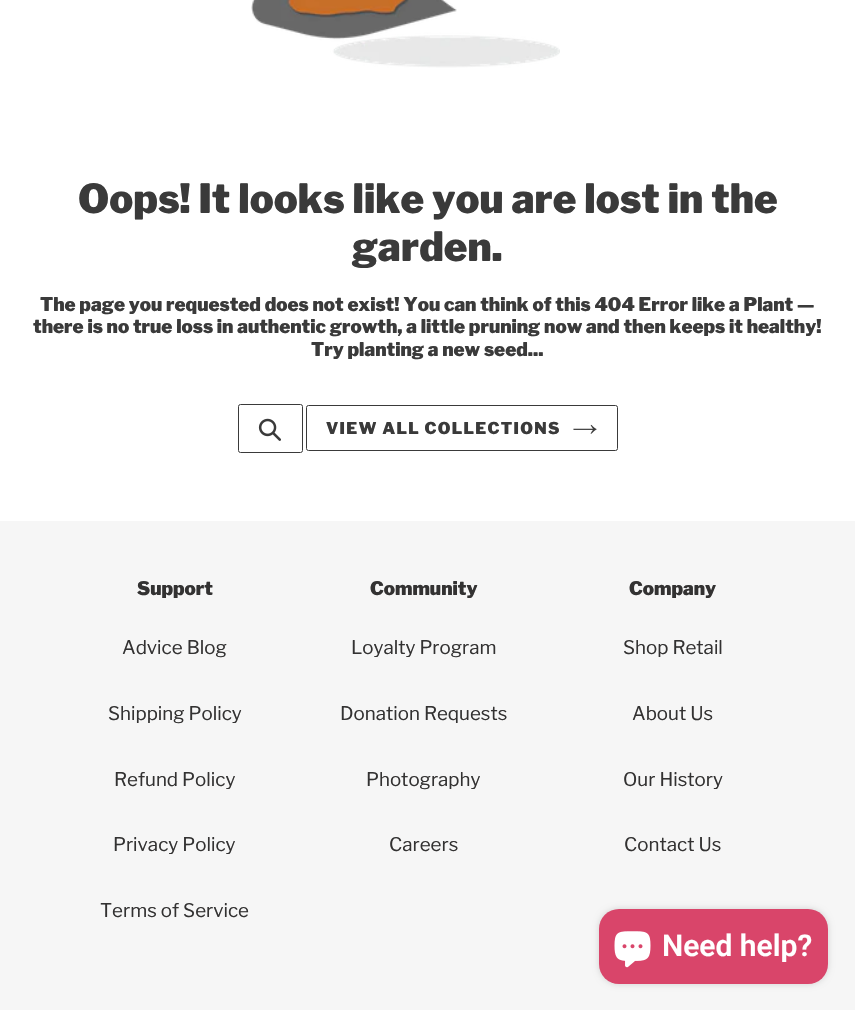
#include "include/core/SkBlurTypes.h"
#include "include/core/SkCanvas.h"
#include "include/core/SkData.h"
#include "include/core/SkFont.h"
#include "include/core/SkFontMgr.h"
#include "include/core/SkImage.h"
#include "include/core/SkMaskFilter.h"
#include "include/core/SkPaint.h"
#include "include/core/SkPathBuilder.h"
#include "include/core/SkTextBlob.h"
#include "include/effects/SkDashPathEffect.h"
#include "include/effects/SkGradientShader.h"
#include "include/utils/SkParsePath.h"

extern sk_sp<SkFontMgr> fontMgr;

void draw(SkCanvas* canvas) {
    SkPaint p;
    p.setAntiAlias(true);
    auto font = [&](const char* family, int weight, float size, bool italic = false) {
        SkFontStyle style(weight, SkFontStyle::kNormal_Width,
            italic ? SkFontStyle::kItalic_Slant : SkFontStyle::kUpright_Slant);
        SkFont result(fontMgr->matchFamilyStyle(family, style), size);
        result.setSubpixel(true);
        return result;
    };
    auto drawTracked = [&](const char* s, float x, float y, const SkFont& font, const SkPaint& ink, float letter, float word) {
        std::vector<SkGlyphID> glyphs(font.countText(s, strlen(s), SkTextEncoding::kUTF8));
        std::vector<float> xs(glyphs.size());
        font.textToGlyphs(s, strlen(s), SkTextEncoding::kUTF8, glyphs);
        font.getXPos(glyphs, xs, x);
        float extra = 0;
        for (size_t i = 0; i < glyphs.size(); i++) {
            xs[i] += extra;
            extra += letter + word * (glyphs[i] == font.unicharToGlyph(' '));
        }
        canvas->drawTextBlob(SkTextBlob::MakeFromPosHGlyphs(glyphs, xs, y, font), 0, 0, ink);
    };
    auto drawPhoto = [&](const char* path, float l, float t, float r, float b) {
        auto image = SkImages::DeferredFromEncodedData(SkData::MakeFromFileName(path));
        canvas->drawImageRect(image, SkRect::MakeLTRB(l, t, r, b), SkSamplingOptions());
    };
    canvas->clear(0xFFFFFFFF);
    drawPhoto("media/1.png", 251, 0, 560, 68);
    auto font1 = font("Libre Franklin", 900, 40);
    p.setColor(0xFF3A3A3A);
    canvas->drawString("Oops! It looks like you are lost in the", 78, 213, font1, p);
    canvas->drawString("garden.", 352, 261, font1, p);
    auto font2 = font("Libre Franklin", 900, 18.75f);
    {
        const struct { const char* s; float x, y; } items[] = {
            {"The page you requested does not exist! You can think of this 404 Error like a Plant —", 40, 311},
            {"there is no true loss in authentic growth, a little pruning now and then keeps it healthy!", 33, 333},
            {"Try planting a new seed...", 311, 356},
        };
        for (auto [s, x, y] : items) {
            canvas->drawString(s, x, y, font2, p);
        }
    }
    p.setStyle(SkPaint::kStroke_Style);
    p.setStrokeWidth(1);
    canvas->drawRoundRect(SkRect::MakeLTRB(238.5f, 404.5f, 302.5f, 452.5f), 2, 2, p);
    drawPhoto("media/2.png", 258, 418, 281, 441);
    canvas->drawRoundRect(SkRect::MakeLTRB(306.5f, 405.5f, 617.5f, 450.5f), 2, 2, p);
    auto font3 = font("Libre Franklin", 900, 16.25f);
    p.setStyle(SkPaint::kFill_Style);
    drawTracked("VIEW ALL COLLECTIONS", 326, 434, font3, p, 1.3f, 0);
    drawPhoto("media/3.png", 573, 424, 597, 434);
    p.setColor(0xFFF6F6F6);
    canvas->drawRect(SkRect::MakeLTRB(0, 521, 855, 1010), p);
    p.setColor(0xFF333232);
    canvas->drawString("Support", 137, 595, font2, p);
    auto font4 = font("Libre Franklin", 400, 18.75f);
    {
        const struct { const char* s; float x, y; } items[] = {
            {"Advice Blog", 122, 654},
            {"Shipping Policy", 108, 720},
            {"Refund Policy", 114, 786},
            {"Privacy Policy", 113, 851},
            {"Terms of Service", 100, 917},
        };
        for (auto [s, x, y] : items) {
            canvas->drawString(s, x, y, font4, p);
        }
    }
    canvas->drawString("Community", 370, 595, font2, p);
    {
        const struct { const char* s; float x, y; } items[] = {
            {"Loyalty Program", 351, 654},
            {"Donation Requests", 340, 720},
            {"Photography", 366, 786},
            {"Careers", 389, 851},
        };
        for (auto [s, x, y] : items) {
            canvas->drawString(s, x, y, font4, p);
        }
    }
    canvas->drawString("Company", 629, 595, font2, p);
    {
        const struct { const char* s; float x, y; } items[] = {
            {"Shop Retail", 623, 654},
            {"About Us", 632, 720},
            {"Our History", 623, 786},
            {"Contact Us", 624, 851},
        };
        for (auto [s, x, y] : items) {
            canvas->drawString(s, x, y, font4, p);
        }
    }
    p.setColor(0x26000000);
    p.setMaskFilter(SkMaskFilter::MakeBlur(kNormal_SkBlurStyle, 3));
    canvas->drawRoundRect(SkRect::MakeLTRB(599, 909, 828, 984), 20, 20, p);
    p.setMaskFilter(nullptr);
    p.setColor(0xFFD9456A);
    canvas->drawRoundRect(SkRect::MakeLTRB(599, 909, 828, 984), 20, 20, p);
    drawPhoto("media/4.png", 614, 931, 651, 968);
    auto font5 = font("Roboto", 600, 30);
    p.setColor(0xFFFFFFFF);
    canvas->drawString("Need help?", 662, 956, font5, p);
}
